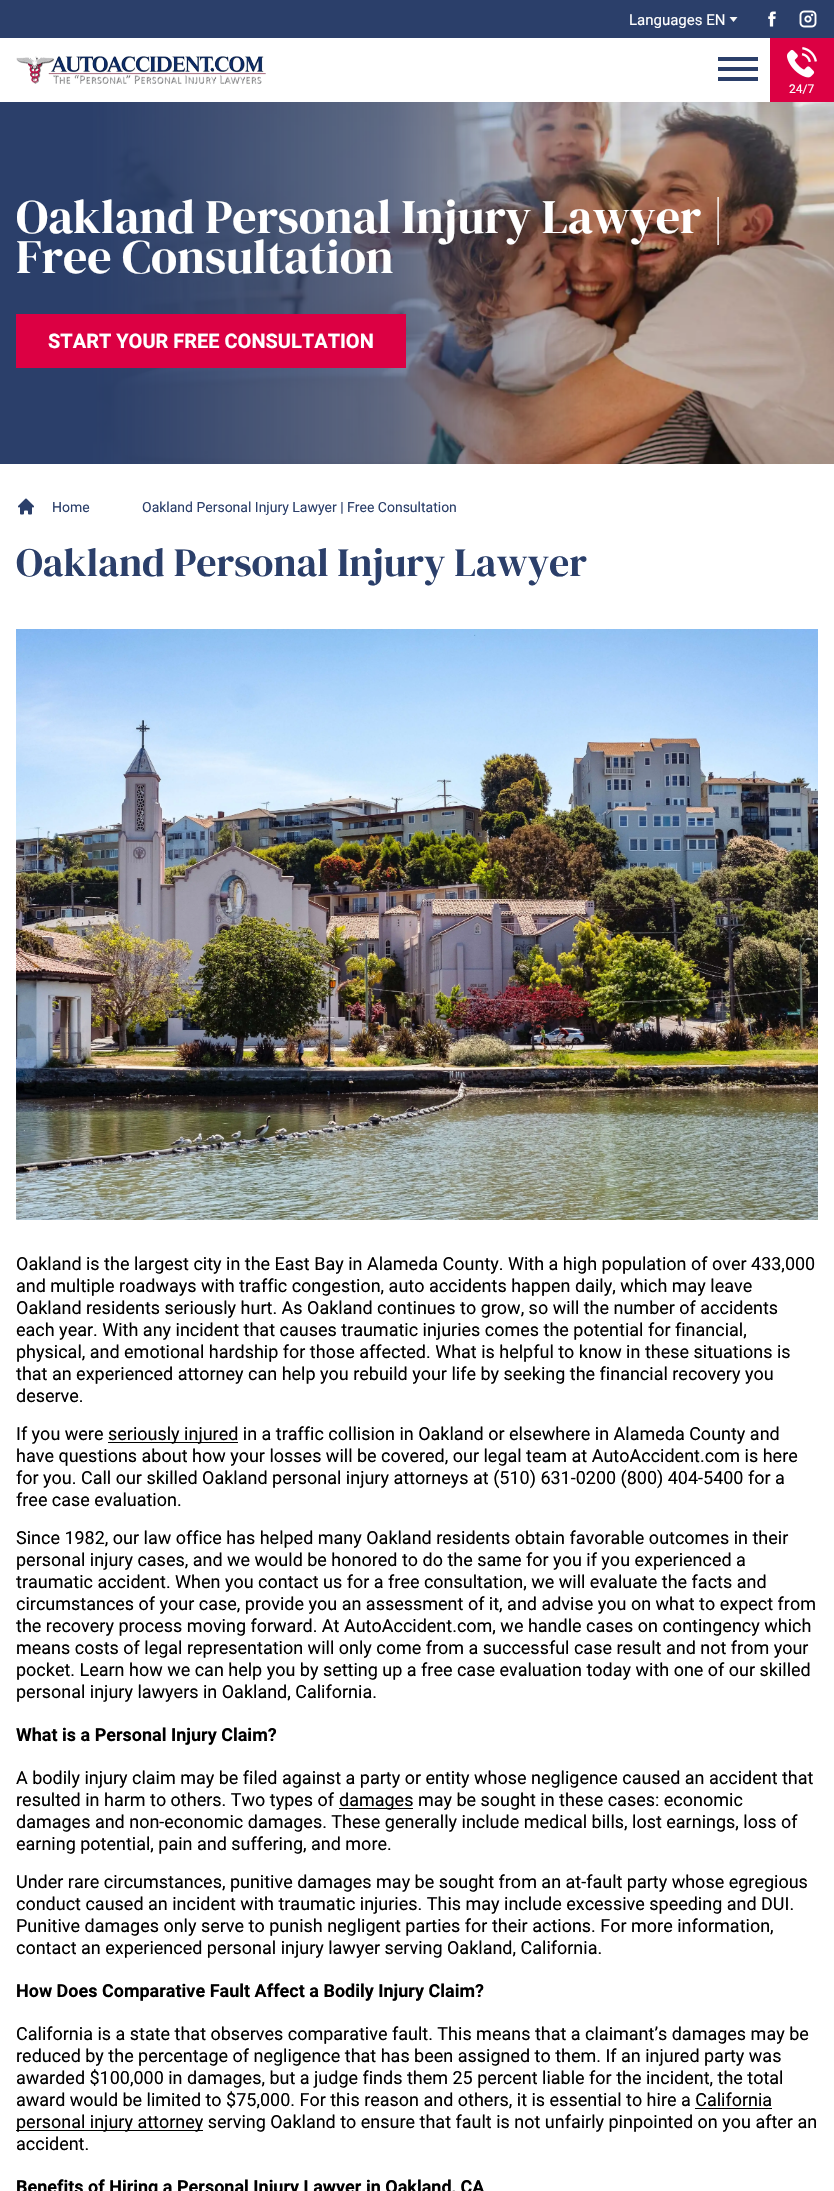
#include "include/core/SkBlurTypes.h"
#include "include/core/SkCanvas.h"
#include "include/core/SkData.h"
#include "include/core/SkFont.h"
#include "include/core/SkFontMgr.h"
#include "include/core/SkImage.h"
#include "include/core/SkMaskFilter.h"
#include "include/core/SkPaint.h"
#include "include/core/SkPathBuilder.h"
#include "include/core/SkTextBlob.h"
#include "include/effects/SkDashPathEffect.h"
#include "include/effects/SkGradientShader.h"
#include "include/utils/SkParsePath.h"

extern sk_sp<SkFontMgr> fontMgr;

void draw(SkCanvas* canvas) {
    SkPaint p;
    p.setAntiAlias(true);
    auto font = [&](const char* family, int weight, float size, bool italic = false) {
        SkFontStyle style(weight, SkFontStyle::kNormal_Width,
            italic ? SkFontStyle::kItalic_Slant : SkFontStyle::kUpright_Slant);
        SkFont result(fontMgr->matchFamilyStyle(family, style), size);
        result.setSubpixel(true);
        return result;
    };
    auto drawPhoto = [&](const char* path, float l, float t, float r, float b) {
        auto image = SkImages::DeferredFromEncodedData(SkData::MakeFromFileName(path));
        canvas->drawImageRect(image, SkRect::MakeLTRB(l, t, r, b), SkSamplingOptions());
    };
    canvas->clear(0xFFFFFFFF);
    p.setColor(0xFF2B3F6A);
    canvas->drawRect(SkRect::MakeLTRB(0, 0, 834, 38), p);
    auto font1 = font("Roboto", 400, 15);
    p.setColor(0xFFFFFFFF);
    canvas->drawString("Languages EN", 629, 25, font1, p);
    p.setColor(0xFFF6F6F6);
    canvas->drawPath(SkPathBuilder().moveTo(733.5f, 22).lineTo(729.5f, 17).lineTo(737.5f, 17).close().detach(), p);
    drawPhoto("media/1.png", 768, 11, 776, 27);
    drawPhoto("media/2.png", 799, 10, 817, 28);
    drawPhoto("media/3.png", 16, 56, 266, 84);
    {
        const struct { float l, t, r, b; SkColor color; } items[] = {
            {718, 57, 758, 61, 0xFF2B3F6A},
            {718, 67, 758, 71, 0xFF2B3F6A},
            {718, 77, 758, 81, 0xFF2B3F6A},
            {770, 38, 834, 102, 0xFFDC0043},
        };
        for (auto [l, t, r, b, color] : items) {
            p.setColor(color);
            canvas->drawRect(SkRect::MakeLTRB(l, t, r, b), p);
        }
    }
    drawPhoto("media/4.png", 787, 47, 817, 78);
    auto font2 = font("Roboto", 400, 12);
    p.setColor(0xFFFFFFFF);
    canvas->drawString("24/7", 789, 93, font2, p);
    drawPhoto("media/5.png", 0, 102, 834, 464);
    auto font3 = font("DM Serif Display", 400, 48);
    canvas->drawString("Oakland Personal Injury Lawyer |", 16, 233, font3, p);
    canvas->drawString("Free Consultation", 16, 273, font3, p);
    p.setColor(0xFFDC0043);
    canvas->drawRect(SkRect::MakeLTRB(16, 314, 406, 368), p);
    auto font4 = font("Roboto", 700, 20);
    p.setColor(0xFFFFFFFF);
    canvas->drawString("START YOUR FREE CONSULTATION", 48, 348, font4, p);
    drawPhoto("media/6.png", 18, 498, 34, 515);
    auto font5 = font("Roboto", 400, 14);
    p.setColor(0xFF2B3F6A);
    canvas->drawString("Home", 52, 512, font5, p);
    canvas->drawString("Oakland Personal Injury Lawyer | Free Consultation", 142, 512, font5, p);
    auto font6 = font("DM Serif Display", 400, 40);
    canvas->drawString("Oakland Personal Injury Lawyer", 16, 576, font6, p);
    drawPhoto("media/7.png", 16, 629, 818, 1220);
    auto font7 = font("Roboto", 400, 18);
    p.setColor(0xFF000000);
    {
        const struct { const char* s; float x, y; } items[] = {
            {"Oakland is the largest city in the East Bay in Alameda County. With a high population of over 433,000", 16, 1270},
            {"and multiple roadways with traffic congestion, auto accidents happen daily, which may leave", 16, 1292},
            {"Oakland residents seriously hurt. As Oakland continues to grow, so will the number of accidents", 16, 1314},
            {"each year. With any incident that causes traumatic injuries comes the potential for financial,", 16, 1336},
            {"physical, and emotional hardship for those affected. What is helpful to know in these situations is", 16, 1358},
            {"that an experienced attorney can help you rebuild your life by seeking the financial recovery you", 16, 1380},
            {"deserve.", 16, 1402},
            {"If you were", 16, 1440},
        };
        for (auto [s, x, y] : items) {
            canvas->drawString(s, x, y, font7, p);
        }
    }
    canvas->drawRect(SkRect::MakeLTRB(108, 1442, 238, 1443), p);
    {
        const struct { const char* s; float x, y; } items[] = {
            {"seriously injured in a traffic collision in Oakland or elsewhere in Alameda County and", 108, 1440},
            {"have questions about how your losses will be covered, our legal team at AutoAccident.com is here", 16, 1462},
            {"for you. Call our skilled Oakland personal injury attorneys at (510) 631-0200 (800) 404-5400 for a", 16, 1484},
            {"free case evaluation.", 16, 1506},
            {"Since 1982, our law office has helped many Oakland residents obtain favorable outcomes in their", 16, 1544},
            {"personal injury cases, and we would be honored to do the same for you if you experienced a", 16, 1566},
            {"traumatic accident. When you contact us for a free consultation, we will evaluate the facts and", 16, 1588},
            {"circumstances of your case, provide you an assessment of it, and advise you on what to expect from", 16, 1610},
            {"the recovery process moving forward. At AutoAccident.com, we handle cases on contingency which", 16, 1632},
            {"means costs of legal representation will only come from a successful case result and not from your", 16, 1654},
            {"pocket. Learn how we can help you by setting up a free case evaluation today with one of our skilled", 16, 1676},
            {"personal injury lawyers in Oakland, California.", 16, 1698},
        };
        for (auto [s, x, y] : items) {
            canvas->drawString(s, x, y, font7, p);
        }
    }
    auto font8 = font("Roboto", 700, 18);
    canvas->drawString("What is a Personal Injury Claim?", 16, 1741, font8, p);
    canvas->drawString("A bodily injury claim may be filed against a party or entity whose negligence caused an accident that", 16, 1784, font7, p);
    canvas->drawString("resulted in harm to others. Two types of", 16, 1806, font7, p);
    canvas->drawRect(SkRect::MakeLTRB(339, 1808, 413, 1809), p);
    {
        const struct { const char* s; float x, y; } items[] = {
            {"damages may be sought in these cases: economic", 339, 1806},
            {"damages and non-economic damages. These generally include medical bills, lost earnings, loss of", 16, 1828},
            {"earning potential, pain and suffering, and more.", 16, 1850},
            {"Under rare circumstances, punitive damages may be sought from an at-fault party whose egregious", 16, 1888},
            {"conduct caused an incident with traumatic injuries. This may include excessive speeding and DUI.", 16, 1910},
            {"Punitive damages only serve to punish negligent parties for their actions. For more information,", 16, 1932},
            {"contact an experienced personal injury lawyer serving Oakland, California.", 16, 1954},
        };
        for (auto [s, x, y] : items) {
            canvas->drawString(s, x, y, font7, p);
        }
    }
    canvas->drawString("How Does Comparative Fault Affect a Bodily Injury Claim?", 16, 1997, font8, p);
    {
        const struct { const char* s; float x, y; } items[] = {
            {"California is a state that observes comparative fault. This means that a claimant’s damages may be", 16, 2040},
            {"reduced by the percentage of negligence that has been assigned to them. If an injured party was", 16, 2062},
            {"awarded $100,000 in damages, but a judge finds them 25 percent liable for the incident, the total", 16, 2084},
            {"award would be limited to $75,000. For this reason and others, it is essential to hire a California", 16, 2106},
        };
        for (auto [s, x, y] : items) {
            canvas->drawString(s, x, y, font7, p);
        }
    }
    canvas->drawRect(SkRect::MakeLTRB(16, 2130, 203, 2131), p);
    canvas->drawString("personal injury attorney serving Oakland to ensure that fault is not unfairly pinpointed on you after an", 16, 2128, font7, p);
    canvas->drawRect(SkRect::MakeLTRB(695, 2108, 772, 2109), p);
    canvas->drawString("accident.", 16, 2150, font7, p);
    canvas->drawString("Benefits of Hiring a Personal Injury Lawyer in Oakland, CA", 16, 2193, font8, p);
}
